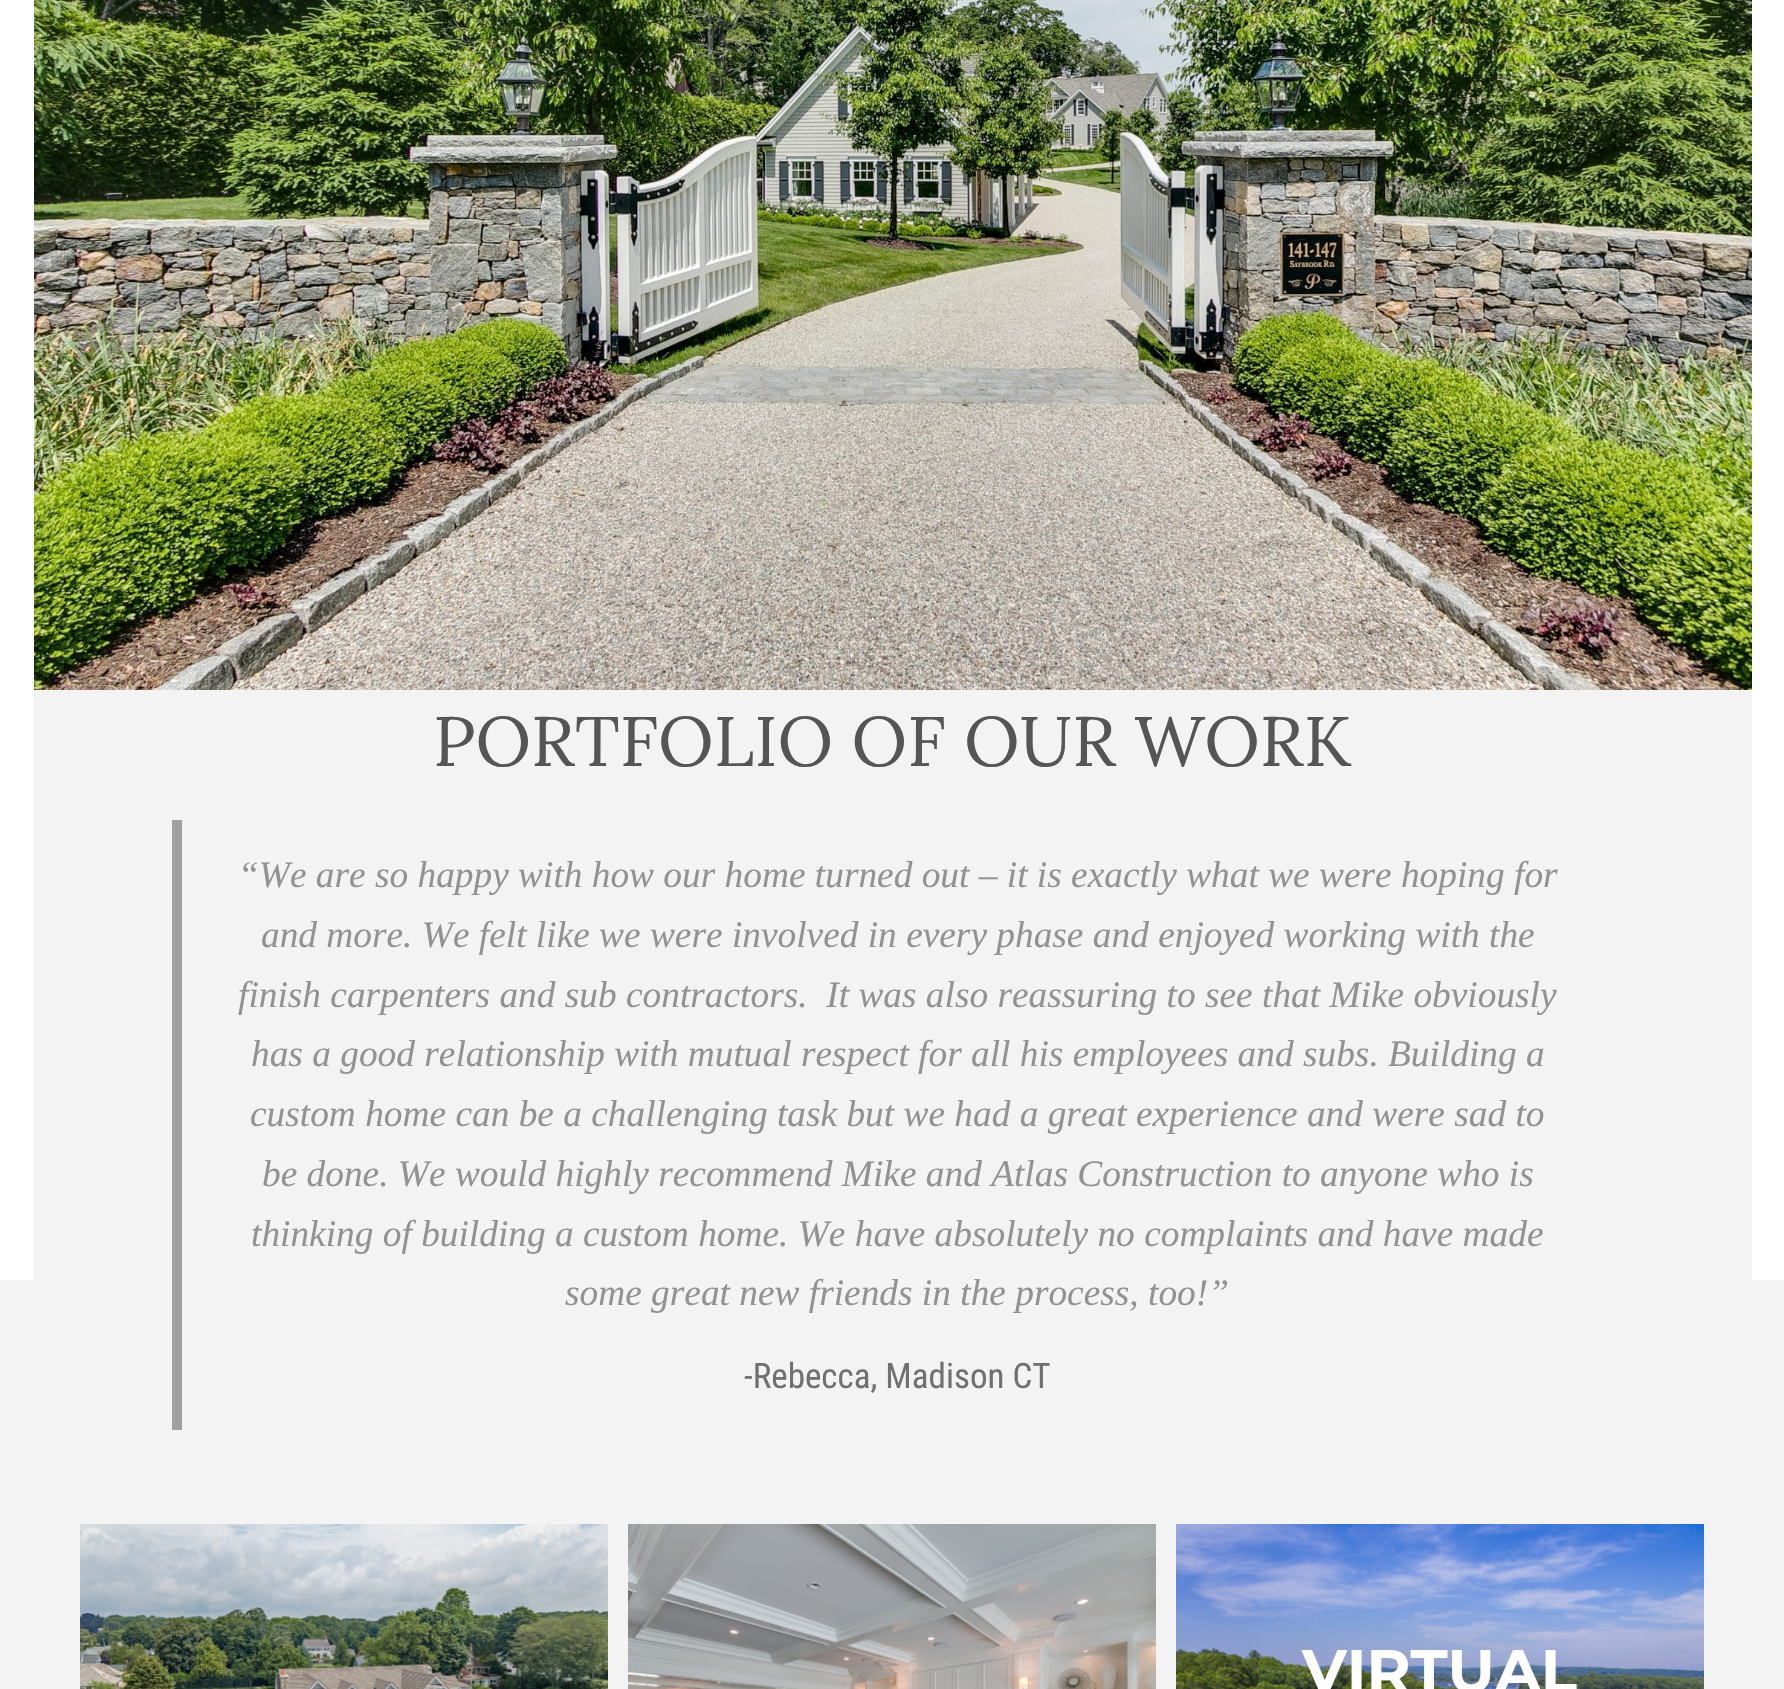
#include "include/core/SkBlurTypes.h"
#include "include/core/SkCanvas.h"
#include "include/core/SkData.h"
#include "include/core/SkFont.h"
#include "include/core/SkFontMgr.h"
#include "include/core/SkImage.h"
#include "include/core/SkMaskFilter.h"
#include "include/core/SkPaint.h"
#include "include/core/SkPathBuilder.h"
#include "include/core/SkTextBlob.h"
#include "include/effects/SkDashPathEffect.h"
#include "include/effects/SkGradientShader.h"
#include "include/utils/SkParsePath.h"

extern sk_sp<SkFontMgr> fontMgr;

void draw(SkCanvas* canvas) {
    SkPaint p;
    p.setAntiAlias(true);
    auto font = [&](const char* family, int weight, float size, bool italic = false) {
        SkFontStyle style(weight, SkFontStyle::kNormal_Width,
            italic ? SkFontStyle::kItalic_Slant : SkFontStyle::kUpright_Slant);
        SkFont result(fontMgr->matchFamilyStyle(family, style), size);
        result.setSubpixel(true);
        return result;
    };
    auto drawPhoto = [&](const char* path, float l, float t, float r, float b) {
        auto image = SkImages::DeferredFromEncodedData(SkData::MakeFromFileName(path));
        canvas->drawImageRect(image, SkRect::MakeLTRB(l, t, r, b), SkSamplingOptions());
    };
    canvas->clear(0xFFF3F3F3);
    p.setColor(0xFFFFFFFF);
    canvas->drawRect(SkRect::MakeLTRB(0, 0, 34, 1280), p);
    drawPhoto("media/1.png", 34, 0, 1752, 690);
    auto font1 = font("Lora", 400, 70);
    p.setColor(0xFF555555);
    canvas->drawString("PORTFOLIO OF OUR WORK", 433, 766, font1, p);
    p.setColor(0xFFA0A0A0);
    canvas->drawRect(SkRect::MakeLTRB(172, 820, 182, 1430), p);
    auto font2 = font("Liberation Serif", 400, 37.35f, true);
    p.setColor(0xFF929292);
    {
        const struct { const char* s; float x, y; } items[] = {
            {"“We are so happy with how our home turned out – it is exactly what we were hoping for", 238, 887},
            {"and more. We felt like we were involved in every phase and enjoyed working with the", 261, 947},
            {"finish carpenters and sub contractors.  It was also reassuring to see that Mike obviously", 238, 1007},
            {"has a good relationship with mutual respect for all his employees and subs. Building a", 251, 1066},
            {"custom home can be a challenging task but we had a great experience and were sad to", 250, 1126},
            {"be done. We would highly recommend Mike and Atlas Construction to anyone who is", 262, 1186},
            {"thinking of building a custom home. We have absolutely no complaints and have made", 251, 1246},
            {"some great new friends in the process, too!”", 565, 1305},
        };
        for (auto [s, x, y] : items) {
            canvas->drawString(s, x, y, font2, p);
        }
    }
    auto font3 = font("Roboto Condensed", 400, 35);
    p.setColor(0xFF707070);
    canvas->drawString("-Rebecca, Madison CT", 744, 1388, font3, p);
    drawPhoto("media/2.png", 80, 1524, 608, 1689);
    drawPhoto("media/3.png", 628, 1524, 1156, 1689);
    drawPhoto("media/4.png", 1176, 1524, 1704, 1689);
    auto font4 = font("Montserrat", 100, 60);
    p.setColor(0xFFFFFFFF);
    canvas->drawString("VIRTUAL", 1302, 1692, font4, p);
    canvas->drawRect(SkRect::MakeLTRB(1752, 0, 1784, 1280), p);
}
